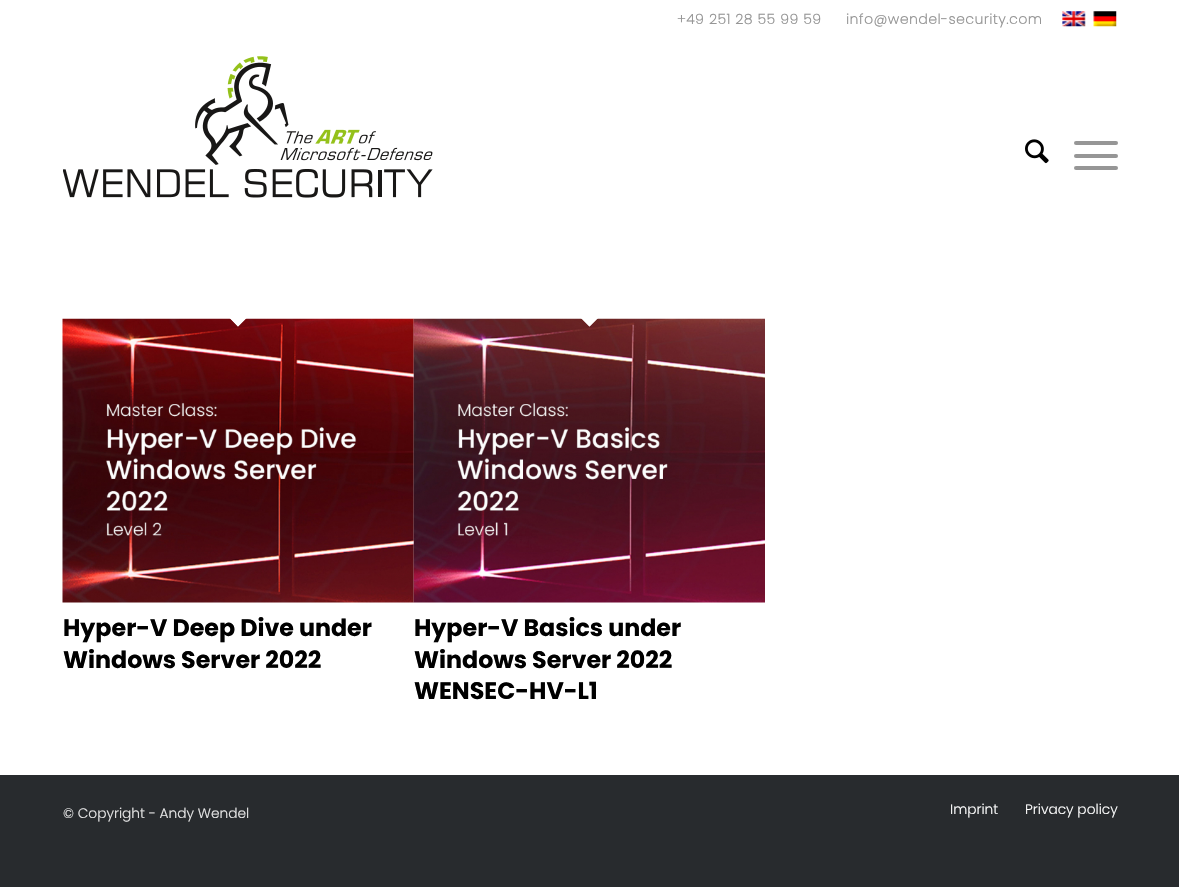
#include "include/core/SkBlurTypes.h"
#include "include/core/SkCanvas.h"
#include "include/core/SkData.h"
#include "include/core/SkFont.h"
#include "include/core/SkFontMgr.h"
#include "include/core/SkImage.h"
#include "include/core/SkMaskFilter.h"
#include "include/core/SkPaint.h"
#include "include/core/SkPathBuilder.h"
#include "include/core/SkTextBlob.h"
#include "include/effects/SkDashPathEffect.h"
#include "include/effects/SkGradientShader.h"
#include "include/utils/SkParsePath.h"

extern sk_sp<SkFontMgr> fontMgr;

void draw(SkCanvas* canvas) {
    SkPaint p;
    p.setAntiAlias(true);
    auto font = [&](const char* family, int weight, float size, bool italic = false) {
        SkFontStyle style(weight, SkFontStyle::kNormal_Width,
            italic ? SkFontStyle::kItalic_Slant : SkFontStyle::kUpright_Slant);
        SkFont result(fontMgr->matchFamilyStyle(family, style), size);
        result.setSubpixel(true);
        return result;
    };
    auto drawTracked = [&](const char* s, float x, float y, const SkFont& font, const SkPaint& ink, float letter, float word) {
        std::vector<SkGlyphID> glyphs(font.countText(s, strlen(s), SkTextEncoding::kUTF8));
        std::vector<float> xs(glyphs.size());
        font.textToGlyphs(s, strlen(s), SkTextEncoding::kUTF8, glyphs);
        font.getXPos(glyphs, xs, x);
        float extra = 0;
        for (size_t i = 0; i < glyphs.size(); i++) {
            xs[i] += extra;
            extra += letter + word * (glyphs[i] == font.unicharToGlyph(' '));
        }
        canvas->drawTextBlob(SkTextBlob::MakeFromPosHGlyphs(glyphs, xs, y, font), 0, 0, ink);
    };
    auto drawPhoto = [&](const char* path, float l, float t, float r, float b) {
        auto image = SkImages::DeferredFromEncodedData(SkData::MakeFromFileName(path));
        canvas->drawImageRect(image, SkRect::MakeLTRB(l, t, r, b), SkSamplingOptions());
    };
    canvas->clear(0xFF282B2E);
    p.setColor(0xFFFFFFFF);
    canvas->drawRect(SkRect::MakeLTRB(0, 0, 1179, 775), p);
    auto font1 = font("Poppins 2", 700, 13.75f);
    p.setColor(0xFF969696);
    drawTracked("+49 251 28 55 99 59", 677, 24, font1, p, 0.7f, 0);
    drawTracked("info@wendel-security.com", 846, 24, font1, p, 0.7f, 0);
    drawPhoto("media/1.png", 1062, 11, 1086, 27);
    drawPhoto("media/2.png", 1093, 11, 1117, 27);
    drawPhoto("media/3.png", 63, 56, 433, 198);
    drawPhoto("media/4.png", 1025, 139, 1049, 164);
    canvas->drawRoundRect(SkRect::MakeLTRB(1074, 154, 1118, 158), 2, 2, p);
    canvas->drawRoundRect(SkRect::MakeLTRB(1074, 141, 1118, 145), 2, 2, p);
    canvas->drawRoundRect(SkRect::MakeLTRB(1074, 166, 1118, 170), 2, 2, p);
    drawPhoto("media/5.png", 62, 318, 414, 603);
    p.setColor(0xFFFFFFFF);
    canvas->drawPath(SkPathBuilder().moveTo(238, 308.5f).lineTo(247, 317.5f).lineTo(238, 326.5f).lineTo(229.5f, 317.5f).close().detach(), p);
    p.setStyle(SkPaint::kStroke_Style);
    p.setStrokeWidth(1.3f);
    canvas->drawPath(SkPathBuilder().moveTo(238, 309.5f).lineTo(246, 317.5f).lineTo(238, 325.5f).lineTo(230, 317.5f).close().detach(), p);
    auto font2 = font("Poppins", 700, 23.75f);
    p.setStyle(SkPaint::kFill_Style);
    p.setColor(0xFF000000);
    canvas->drawString("Hyper-V Deep Dive under", 63, 636, font2, p);
    canvas->drawString("Windows Server 2022", 63, 668, font2, p);
    drawPhoto("media/6.png", 413, 318, 765, 603);
    p.setColor(0xFFFFFFFF);
    canvas->drawPath(SkPathBuilder().moveTo(589.5f, 308.5f).lineTo(598.5f, 317.5f).lineTo(589.5f, 326.5f).lineTo(580.5f, 317.5f).close().detach(), p);
    p.setStyle(SkPaint::kStroke_Style);
    canvas->drawPath(SkPathBuilder().moveTo(589.5f, 309.5f).lineTo(597.5f, 317.5f).lineTo(589.5f, 325.5f).lineTo(581.5f, 317.5f).close().detach(), p);
    p.setStyle(SkPaint::kFill_Style);
    p.setColor(0xFF000000);
    {
        const struct { const char* s; float x, y; } items[] = {
            {"Hyper-V Basics under", 414, 636},
            {"Windows Server 2022", 414, 668},
            {"WENSEC-HV-L1", 414, 699},
        };
        for (auto [s, x, y] : items) {
            canvas->drawString(s, x, y, font2, p);
        }
    }
    auto font3 = font("Poppins", 300, 13.75f);
    p.setColor(0xFFE8E8E8);
    canvas->drawString("© Copyright - Andy Wendel", 63, 818, font3, p);
    p.setColor(0xFFFFFFFF);
    canvas->drawString("Imprint", 950, 814, font3, p);
    canvas->drawString("Privacy policy", 1025, 814, font3, p);
}
